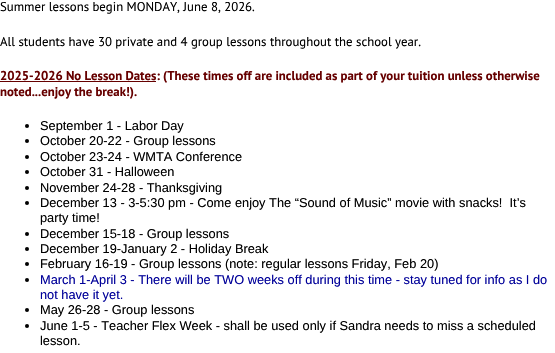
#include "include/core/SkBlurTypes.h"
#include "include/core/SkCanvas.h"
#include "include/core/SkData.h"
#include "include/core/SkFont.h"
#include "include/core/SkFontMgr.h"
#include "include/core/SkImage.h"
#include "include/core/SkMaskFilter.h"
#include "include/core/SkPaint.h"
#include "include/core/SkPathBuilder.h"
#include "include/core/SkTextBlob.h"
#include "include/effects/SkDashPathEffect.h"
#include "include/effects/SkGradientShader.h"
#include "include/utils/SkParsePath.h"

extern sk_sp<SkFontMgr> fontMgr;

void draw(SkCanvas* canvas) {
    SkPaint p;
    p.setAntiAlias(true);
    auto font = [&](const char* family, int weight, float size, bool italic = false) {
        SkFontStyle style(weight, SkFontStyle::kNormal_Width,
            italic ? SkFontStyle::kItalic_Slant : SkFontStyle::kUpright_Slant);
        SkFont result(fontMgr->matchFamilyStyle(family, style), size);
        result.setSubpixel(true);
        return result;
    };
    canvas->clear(0xFFFFFFFF);
    auto font1 = font("PT Sans", 400, 12.8f);
    p.setColor(0xFF000000);
    canvas->drawString("Summer lessons begin MONDAY, June 8, 2026.", 0, 11, font1, p);
    canvas->drawString("All students have 30 private and 4 group lessons throughout the school year.", 0, 46, font1, p);
    p.setColor(0xFF660000);
    canvas->drawRect(SkRect::MakeLTRB(0, 81, 156, 82), p);
    auto font2 = font("PT Sans", 700, 12.8f);
    canvas->drawString("2025-2026 No Lesson Dates: (These times off are included as part of your tuition unless otherwise", 0, 80, font2, p);
    canvas->drawString("noted...enjoy the break!).", 0, 96, font2, p);
    p.setColor(0xFF000000);
    canvas->drawCircle(27, 126, 2, p);
    auto font3 = font("Liberation Sans", 400, 12.8f);
    canvas->drawString("September 1 - Labor Day", 40, 130, font3, p);
    canvas->drawCircle(27, 141, 2, p);
    canvas->drawString("October 20-22 - Group lessons", 40, 145, font3, p);
    canvas->drawCircle(27, 157, 2, p);
    canvas->drawString("October 23-24 - WMTA Conference", 40, 161, font3, p);
    canvas->drawCircle(27, 172, 2, p);
    canvas->drawString("October 31 - Halloween", 40, 176, font3, p);
    canvas->drawCircle(27, 188, 2, p);
    canvas->drawString("November 24-28 - Thanksgiving", 40, 192, font3, p);
    canvas->drawCircle(27, 203, 2, p);
    canvas->drawString("December 13 - 3-5:30 pm - Come enjoy The “Sound of Music” movie with snacks!  It’s", 40, 207, font3, p);
    canvas->drawString("party time!", 40, 222, font3, p);
    canvas->drawCircle(27, 234, 2, p);
    canvas->drawString("December 15-18 - Group lessons", 40, 238, font3, p);
    canvas->drawCircle(27, 249, 2, p);
    canvas->drawString("December 19-January 2 - Holiday Break", 40, 253, font3, p);
    canvas->drawCircle(27, 264, 2, p);
    canvas->drawString("February 16-19 - Group lessons (note: regular lessons Friday, Feb 20)", 40, 268, font3, p);
    canvas->drawCircle(27, 280, 2, p);
    p.setColor(0xFF000099);
    canvas->drawString("March 1-April 3 - There will be TWO weeks off during this time - stay tuned for info as I do", 40, 284, font3, p);
    canvas->drawString("not have it yet.", 40, 299, font3, p);
    p.setColor(0xFF000000);
    canvas->drawCircle(27, 310, 2, p);
    canvas->drawString("May 26-28 - Group lessons", 40, 314, font3, p);
    canvas->drawCircle(27, 326, 2, p);
    canvas->drawString("June 1-5 - Teacher Flex Week - shall be used only if Sandra needs to miss a scheduled", 40, 330, font3, p);
    canvas->drawString("lesson.", 40, 345, font3, p);
}
